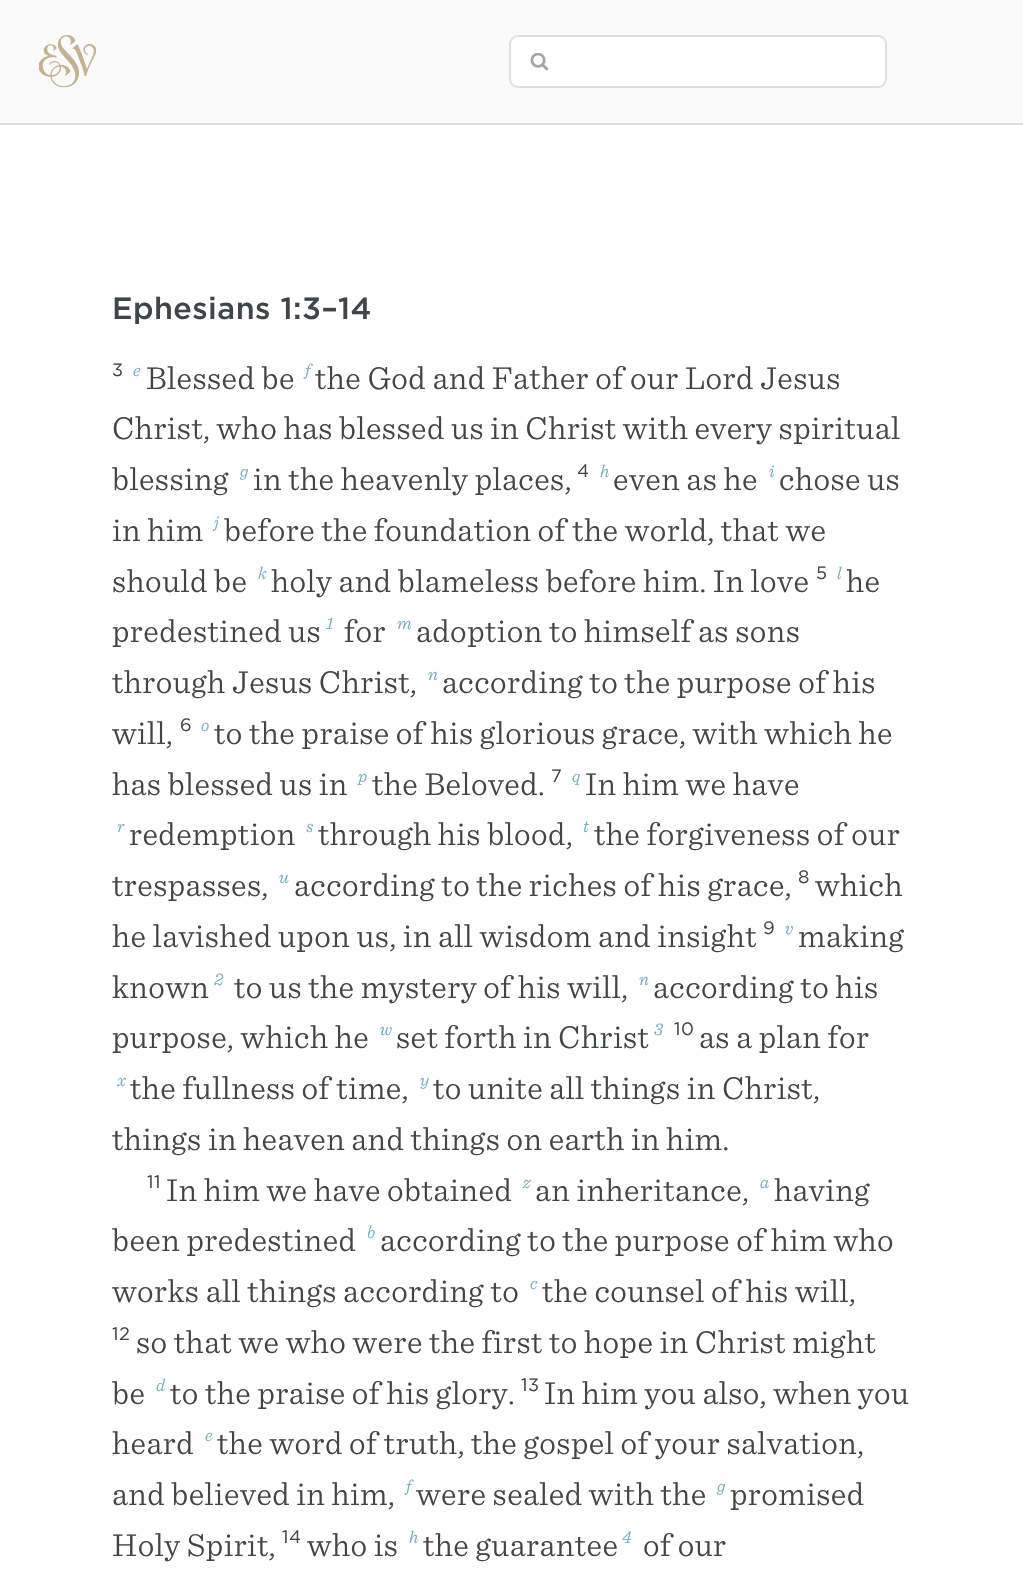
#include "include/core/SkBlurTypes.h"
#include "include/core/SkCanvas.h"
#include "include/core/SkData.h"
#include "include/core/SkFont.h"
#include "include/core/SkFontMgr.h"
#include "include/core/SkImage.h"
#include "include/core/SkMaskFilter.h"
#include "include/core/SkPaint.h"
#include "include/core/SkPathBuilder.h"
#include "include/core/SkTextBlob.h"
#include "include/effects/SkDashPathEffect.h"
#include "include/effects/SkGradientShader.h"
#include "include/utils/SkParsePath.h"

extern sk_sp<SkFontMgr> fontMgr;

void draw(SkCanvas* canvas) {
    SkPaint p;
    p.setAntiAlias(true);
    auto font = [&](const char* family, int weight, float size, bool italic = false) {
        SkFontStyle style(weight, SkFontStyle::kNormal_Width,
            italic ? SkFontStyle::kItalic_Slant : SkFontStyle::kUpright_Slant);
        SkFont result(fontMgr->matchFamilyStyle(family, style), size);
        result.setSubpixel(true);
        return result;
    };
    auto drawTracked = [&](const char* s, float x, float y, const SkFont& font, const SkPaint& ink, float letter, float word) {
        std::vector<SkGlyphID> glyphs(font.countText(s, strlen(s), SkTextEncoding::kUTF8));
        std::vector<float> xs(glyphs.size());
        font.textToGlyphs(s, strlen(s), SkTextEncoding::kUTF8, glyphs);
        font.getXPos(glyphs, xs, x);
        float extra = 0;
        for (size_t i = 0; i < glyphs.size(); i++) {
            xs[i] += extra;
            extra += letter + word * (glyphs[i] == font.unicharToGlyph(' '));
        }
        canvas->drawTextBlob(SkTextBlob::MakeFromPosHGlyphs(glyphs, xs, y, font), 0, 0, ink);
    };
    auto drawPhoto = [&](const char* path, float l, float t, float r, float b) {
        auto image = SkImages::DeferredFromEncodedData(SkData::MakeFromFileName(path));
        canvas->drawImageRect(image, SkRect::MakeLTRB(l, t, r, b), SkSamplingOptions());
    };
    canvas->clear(0xFFFAFAFA);
    drawPhoto("media/1.png", 39, 35, 96, 88);
    p.setColor(0xFFFFFFFF);
    canvas->drawRoundRect(SkRect::MakeLTRB(509, 35, 887, 88), 9, 9, p);
    drawPhoto("media/2.png", 530, 53, 549, 71);
    p.setStyle(SkPaint::kStroke_Style);
    p.setStrokeWidth(2);
    p.setColor(0xFFDCE0E3);
    canvas->drawRoundRect(SkRect::MakeLTRB(510, 36, 886, 87), 8, 8, p);
    p.setStyle(SkPaint::kFill_Style);
    p.setColor(0xFFFFFFFF);
    canvas->drawRect(SkRect::MakeLTRB(0, 125, 1023, 1582), p);
    p.setColor(0xFFDCE0E3);
    canvas->drawRect(SkRect::MakeLTRB(0, 123, 1023, 125), p);
    auto font1 = font("Gotham", 500, 30.6f);
    p.setColor(0xFF424547);
    drawTracked("Ephesians 1:3–14", 112, 319, font1, p, 0.45f, 0);
    auto font2 = font("Gotham", 400, 18);
    drawTracked("3", 112, 376, font2, p, 0.45f, 0);
    auto font3 = font("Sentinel", 300, 18, true);
    p.setColor(0xFF72ABBF);
    drawTracked("e", 133, 376, font3, p, 0.45f, 0);
    auto font4 = font("Sentinel", 300, 33.25f);
    p.setColor(0xFF424547);
    drawTracked("Blessed be", 146, 389, font4, p, 0.45f, 0);
    p.setColor(0xFF72ABBF);
    drawTracked("f", 305, 376, font3, p, 0.45f, 0);
    p.setColor(0xFF424547);
    {
        const struct { const char* s; float x, y; } items[] = {
            {"the God and Father of our Lord Jesus", 315, 389},
            {"Christ, who has blessed us in Christ with every spiritual", 112, 439},
            {"blessing", 112, 490},
        };
        for (auto [s, x, y] : items) {
            drawTracked(s, x, y, font4, p, 0.45f, 0);
        }
    }
    p.setColor(0xFF72ABBF);
    drawTracked("g", 240, 477, font3, p, 0.45f, 0);
    p.setColor(0xFF424547);
    drawTracked("in the heavenly places,", 253, 490, font4, p, 0.45f, 0);
    drawTracked("4", 577, 477, font2, p, 0.45f, 0);
    p.setColor(0xFF72ABBF);
    drawTracked("h", 600, 477, font3, p, 0.45f, 0);
    p.setColor(0xFF424547);
    drawTracked("even as he", 613, 490, font4, p, 0.45f, 0);
    p.setColor(0xFF72ABBF);
    drawTracked("i", 769, 477, font3, p, 0.45f, 0);
    p.setColor(0xFF424547);
    drawTracked("chose us", 779, 490, font4, p, 0.45f, 0);
    drawTracked("in him", 112, 541, font4, p, 0.45f, 0);
    p.setColor(0xFF72ABBF);
    drawTracked("j", 214, 528, font3, p, 0.45f, 0);
    p.setColor(0xFF424547);
    drawTracked("before the foundation of the world, that we", 224, 541, font4, p, 0.45f, 0);
    drawTracked("should be", 112, 592, font4, p, 0.45f, 0);
    p.setColor(0xFF72ABBF);
    drawTracked("k", 258, 579, font3, p, 0.45f, 0);
    p.setColor(0xFF424547);
    drawTracked("holy and blameless before him. In love", 271, 592, font4, p, 0.45f, 0);
    drawTracked("5", 816, 579, font2, p, 0.45f, 0);
    p.setColor(0xFF72ABBF);
    drawTracked("l", 837, 579, font3, p, 0.45f, 0);
    p.setColor(0xFF424547);
    drawTracked("he", 846, 592, font4, p, 0.45f, 0);
    drawTracked("predestined us", 112, 642, font4, p, 0.45f, 0);
    p.setColor(0xFF72ABBF);
    drawTracked("1", 326, 629, font3, p, 0.45f, 0);
    p.setColor(0xFF424547);
    drawTracked("for", 344, 642, font4, p, 0.45f, 0);
    p.setColor(0xFF72ABBF);
    drawTracked("m", 397, 629, font3, p, 0.45f, 0);
    p.setColor(0xFF424547);
    drawTracked("adoption to himself as sons", 416, 642, font4, p, 0.45f, 0);
    drawTracked("through Jesus Christ,", 112, 693, font4, p, 0.45f, 0);
    p.setColor(0xFF72ABBF);
    drawTracked("n", 428, 680, font3, p, 0.45f, 0);
    p.setColor(0xFF424547);
    drawTracked("according to the purpose of his", 442, 693, font4, p, 0.45f, 0);
    drawTracked("will,", 112, 744, font4, p, 0.45f, 0);
    drawTracked("6", 180, 731, font2, p, 0.45f, 0);
    p.setColor(0xFF72ABBF);
    drawTracked("o", 201, 731, font3, p, 0.45f, 0);
    p.setColor(0xFF424547);
    drawTracked("to the praise of his glorious grace, with which he", 214, 744, font4, p, 0.45f, 0);
    drawTracked("has blessed us in", 112, 795, font4, p, 0.45f, 0);
    p.setColor(0xFF72ABBF);
    drawTracked("p", 358, 782, font3, p, 0.45f, 0);
    p.setColor(0xFF424547);
    drawTracked("the Beloved.", 372, 795, font4, p, 0.45f, 0);
    drawTracked("7", 551, 782, font2, p, 0.45f, 0);
    p.setColor(0xFF72ABBF);
    drawTracked("q", 572, 782, font3, p, 0.45f, 0);
    p.setColor(0xFF424547);
    drawTracked("In him we have", 585, 795, font4, p, 0.45f, 0);
    p.setColor(0xFF72ABBF);
    drawTracked("r", 117, 832, font3, p, 0.45f, 0);
    p.setColor(0xFF424547);
    drawTracked("redemption", 129, 845, font4, p, 0.45f, 0);
    p.setColor(0xFF72ABBF);
    drawTracked("s", 306, 832, font3, p, 0.45f, 0);
    p.setColor(0xFF424547);
    drawTracked("through his blood,", 318, 845, font4, p, 0.45f, 0);
    p.setColor(0xFF72ABBF);
    drawTracked("t", 583, 832, font3, p, 0.45f, 0);
    p.setColor(0xFF424547);
    drawTracked("the forgiveness of our", 594, 845, font4, p, 0.45f, 0);
    drawTracked("trespasses,", 112, 896, font4, p, 0.45f, 0);
    p.setColor(0xFF72ABBF);
    drawTracked("u", 279, 883, font3, p, 0.45f, 0);
    p.setColor(0xFF424547);
    drawTracked("according to the riches of his grace,", 294, 896, font4, p, 0.45f, 0);
    drawTracked("8", 798, 883, font2, p, 0.45f, 0);
    drawTracked("which", 815, 896, font4, p, 0.45f, 0);
    drawTracked("he lavished upon us, in all wisdom and insight", 112, 947, font4, p, 0.45f, 0);
    drawTracked("9", 763, 934, font2, p, 0.45f, 0);
    p.setColor(0xFF72ABBF);
    drawTracked("v", 785, 934, font3, p, 0.45f, 0);
    p.setColor(0xFF424547);
    drawTracked("making", 798, 947, font4, p, 0.45f, 0);
    drawTracked("known", 112, 998, font4, p, 0.45f, 0);
    p.setColor(0xFF72ABBF);
    drawTracked("2", 214, 985, font3, p, 0.45f, 0);
    p.setColor(0xFF424547);
    drawTracked("to us the mystery of his will,", 234, 998, font4, p, 0.45f, 0);
    p.setColor(0xFF72ABBF);
    drawTracked("n", 639, 985, font3, p, 0.45f, 0);
    p.setColor(0xFF424547);
    drawTracked("according to his", 653, 998, font4, p, 0.45f, 0);
    drawTracked("purpose, which he", 112, 1048, font4, p, 0.45f, 0);
    p.setColor(0xFF72ABBF);
    drawTracked("w", 380, 1035, font3, p, 0.45f, 0);
    p.setColor(0xFF424547);
    drawTracked("set forth in Christ", 396, 1048, font4, p, 0.45f, 0);
    p.setColor(0xFF72ABBF);
    drawTracked("3", 654, 1035, font3, p, 0.45f, 0);
    p.setColor(0xFF424547);
    drawTracked("10", 674, 1035, font2, p, 0.45f, 0);
    drawTracked("as a plan for", 699, 1048, font4, p, 0.45f, 0);
    p.setColor(0xFF72ABBF);
    drawTracked("x", 117, 1086, font3, p, 0.45f, 0);
    p.setColor(0xFF424547);
    drawTracked("the fullness of time,", 130, 1099, font4, p, 0.45f, 0);
    p.setColor(0xFF72ABBF);
    drawTracked("y", 420, 1086, font3, p, 0.45f, 0);
    p.setColor(0xFF424547);
    drawTracked("to unite all things in Christ,", 433, 1099, font4, p, 0.45f, 0);
    drawTracked("things in heaven and things on earth in him.", 112, 1150, font4, p, 0.45f, 0);
    drawTracked("11", 147, 1188, font2, p, 0.45f, 0);
    drawTracked("In him we have obtained", 166, 1201, font4, p, 0.45f, 0);
    p.setColor(0xFF72ABBF);
    drawTracked("z", 523, 1188, font3, p, 0.45f, 0);
    p.setColor(0xFF424547);
    drawTracked("an inheritance,", 535, 1201, font4, p, 0.45f, 0);
    p.setColor(0xFF72ABBF);
    drawTracked("a", 760, 1188, font3, p, 0.45f, 0);
    p.setColor(0xFF424547);
    drawTracked("having", 774, 1201, font4, p, 0.45f, 0);
    drawTracked("been predestined", 112, 1251, font4, p, 0.45f, 0);
    p.setColor(0xFF72ABBF);
    drawTracked("b", 367, 1238, font3, p, 0.45f, 0);
    p.setColor(0xFF424547);
    drawTracked("according to the purpose of him who", 380, 1251, font4, p, 0.45f, 0);
    drawTracked("works all things according to", 112, 1302, font4, p, 0.45f, 0);
    p.setColor(0xFF72ABBF);
    drawTracked("c", 530, 1289, font3, p, 0.45f, 0);
    p.setColor(0xFF424547);
    drawTracked("the counsel of his will,", 542, 1302, font4, p, 0.45f, 0);
    drawTracked("12", 112, 1340, font2, p, 0.45f, 0);
    drawTracked("so that we who were the first to hope in Christ might", 136, 1353, font4, p, 0.45f, 0);
    drawTracked("be", 112, 1404, font4, p, 0.45f, 0);
    p.setColor(0xFF72ABBF);
    drawTracked("d", 156, 1391, font3, p, 0.45f, 0);
    p.setColor(0xFF424547);
    drawTracked("to the praise of his glory.", 170, 1404, font4, p, 0.45f, 0);
    drawTracked("13", 521, 1391, font2, p, 0.45f, 0);
    drawTracked("In him you also, when you", 544, 1404, font4, p, 0.45f, 0);
    drawTracked("heard", 112, 1454, font4, p, 0.45f, 0);
    p.setColor(0xFF72ABBF);
    drawTracked("e", 205, 1441, font3, p, 0.45f, 0);
    p.setColor(0xFF424547);
    drawTracked("the word of truth, the gospel of your salvation,", 217, 1454, font4, p, 0.45f, 0);
    drawTracked("and believed in him,", 112, 1505, font4, p, 0.45f, 0);
    p.setColor(0xFF72ABBF);
    drawTracked("f", 406, 1492, font3, p, 0.45f, 0);
    p.setColor(0xFF424547);
    drawTracked("were sealed with the", 416, 1505, font4, p, 0.45f, 0);
    p.setColor(0xFF72ABBF);
    drawTracked("g", 717, 1492, font3, p, 0.45f, 0);
    p.setColor(0xFF424547);
    drawTracked("promised", 730, 1505, font4, p, 0.45f, 0);
    drawTracked("Holy Spirit,", 112, 1556, font4, p, 0.45f, 0);
    drawTracked("14", 282, 1543, font2, p, 0.45f, 0);
    drawTracked("who is", 307, 1556, font4, p, 0.45f, 0);
    p.setColor(0xFF72ABBF);
    drawTracked("h", 409, 1543, font3, p, 0.45f, 0);
    p.setColor(0xFF424547);
    drawTracked("the guarantee", 423, 1556, font4, p, 0.45f, 0);
    p.setColor(0xFF72ABBF);
    drawTracked("4", 622, 1543, font3, p, 0.45f, 0);
    p.setColor(0xFF424547);
    drawTracked("of our", 643, 1556, font4, p, 0.45f, 0);
}
